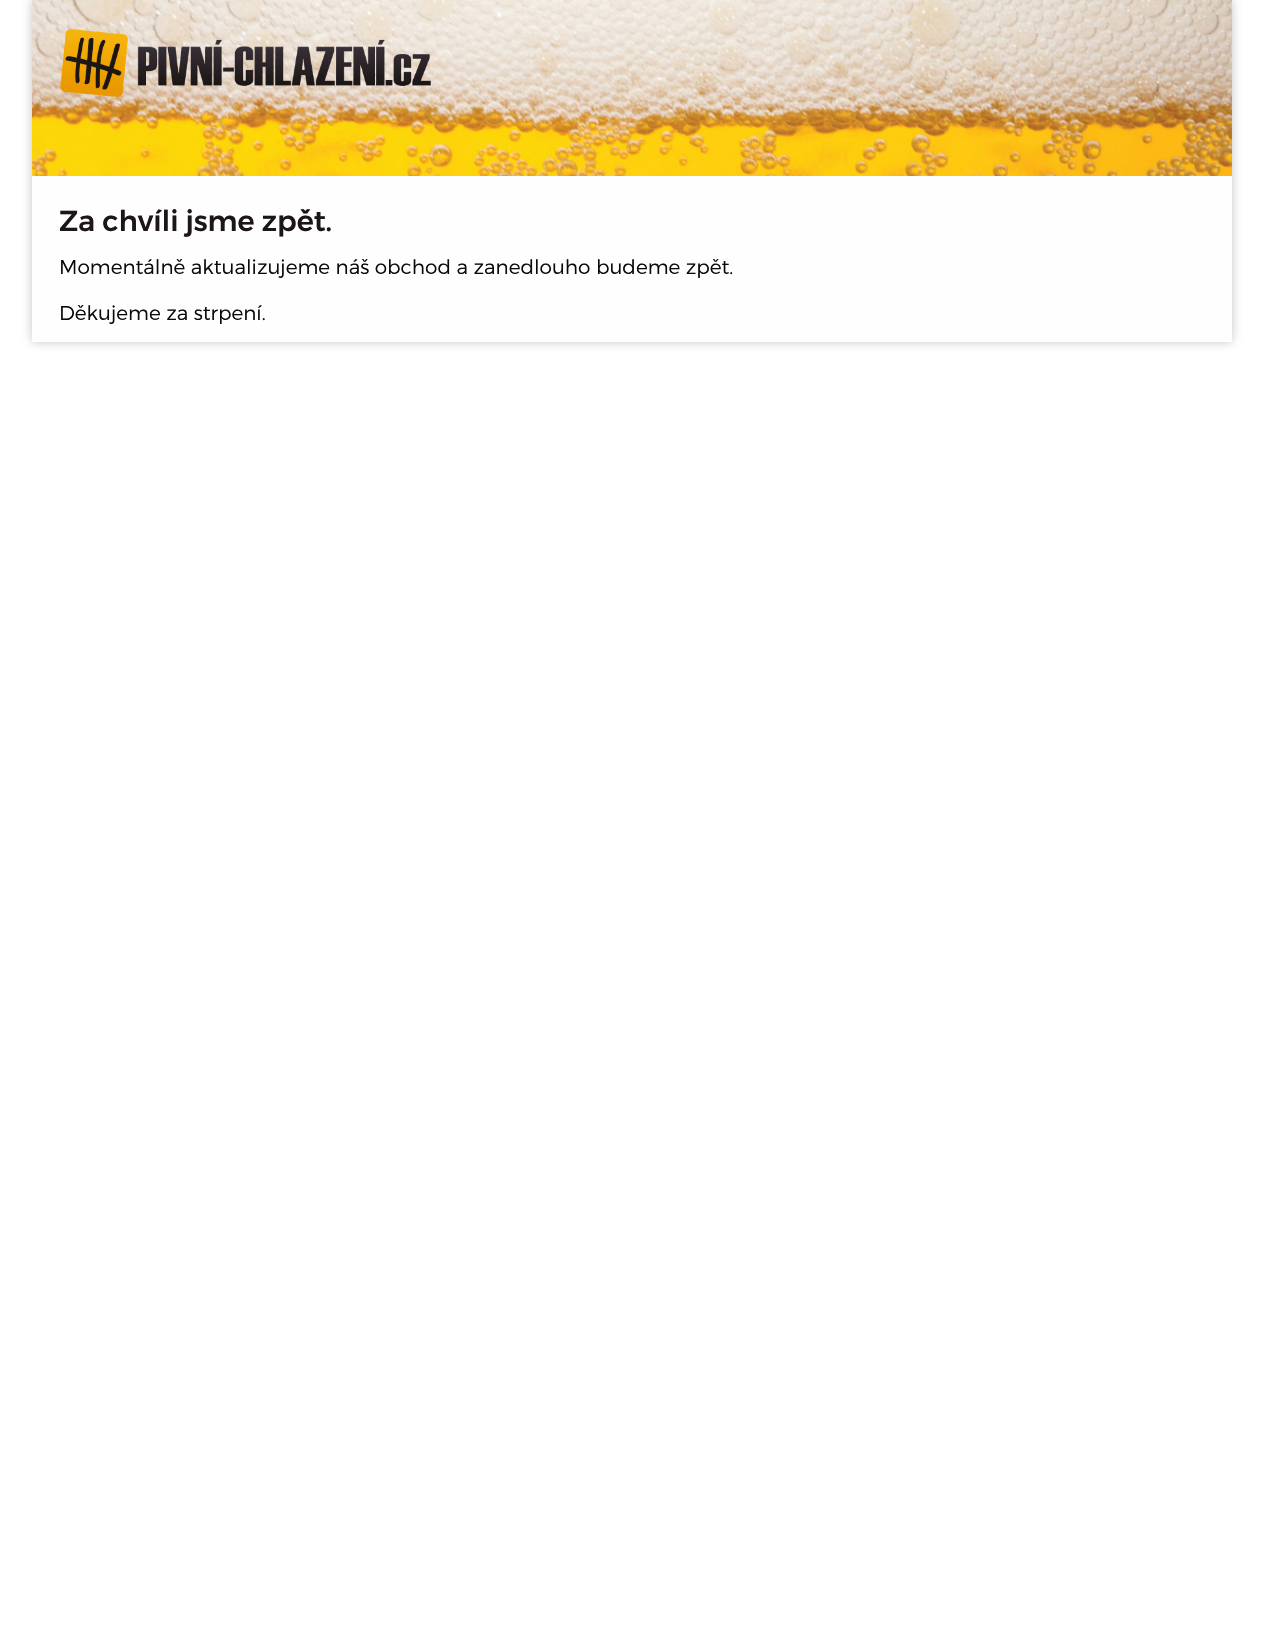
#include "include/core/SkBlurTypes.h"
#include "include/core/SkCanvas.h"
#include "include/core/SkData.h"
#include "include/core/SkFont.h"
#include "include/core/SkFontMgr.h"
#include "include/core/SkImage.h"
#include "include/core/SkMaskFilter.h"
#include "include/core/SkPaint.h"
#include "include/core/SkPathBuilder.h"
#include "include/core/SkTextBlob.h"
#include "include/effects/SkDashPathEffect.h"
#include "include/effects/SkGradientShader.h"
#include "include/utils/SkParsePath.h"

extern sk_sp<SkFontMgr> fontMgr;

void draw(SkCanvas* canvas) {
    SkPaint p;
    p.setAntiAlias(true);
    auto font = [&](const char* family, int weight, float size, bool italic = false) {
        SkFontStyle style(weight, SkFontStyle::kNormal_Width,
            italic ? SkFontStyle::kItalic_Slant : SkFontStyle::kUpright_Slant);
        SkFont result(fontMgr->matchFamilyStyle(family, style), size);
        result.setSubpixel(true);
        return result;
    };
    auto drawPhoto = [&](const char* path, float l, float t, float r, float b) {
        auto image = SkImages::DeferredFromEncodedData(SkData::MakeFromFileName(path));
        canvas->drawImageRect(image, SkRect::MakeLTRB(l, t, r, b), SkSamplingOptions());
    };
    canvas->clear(0xFFFFFFFF);
    p.setColor(0x808A8A8A);
    p.setMaskFilter(SkMaskFilter::MakeBlur(kNormal_SkBlurStyle, 5));
    canvas->drawRect(SkRect::MakeLTRB(32, 0, 1232, 342), p);
    p.setMaskFilter(nullptr);
    drawPhoto("media/1.png", 32, 0, 1232, 176);
    drawPhoto("media/2.png", 60, 29, 431, 97);
    p.setColor(0xFFFEFEFE);
    canvas->drawRect(SkRect::MakeLTRB(32, 176, 1232, 342), p);
    auto font1 = font("Montserrat", 500, 28.75f);
    p.setColor(0xFF1C1617);
    canvas->drawString("Za chvíli jsme zpět.", 59, 231, font1, p);
    auto font2 = font("Montserrat", 300, 20);
    p.setColor(0xFF0A0A0A);
    canvas->drawString("Momentálně aktualizujeme náš obchod a zanedlouho budeme zpět.", 59, 274, font2, p);
    canvas->drawString("Děkujeme za strpení.", 59, 320, font2, p);
}
